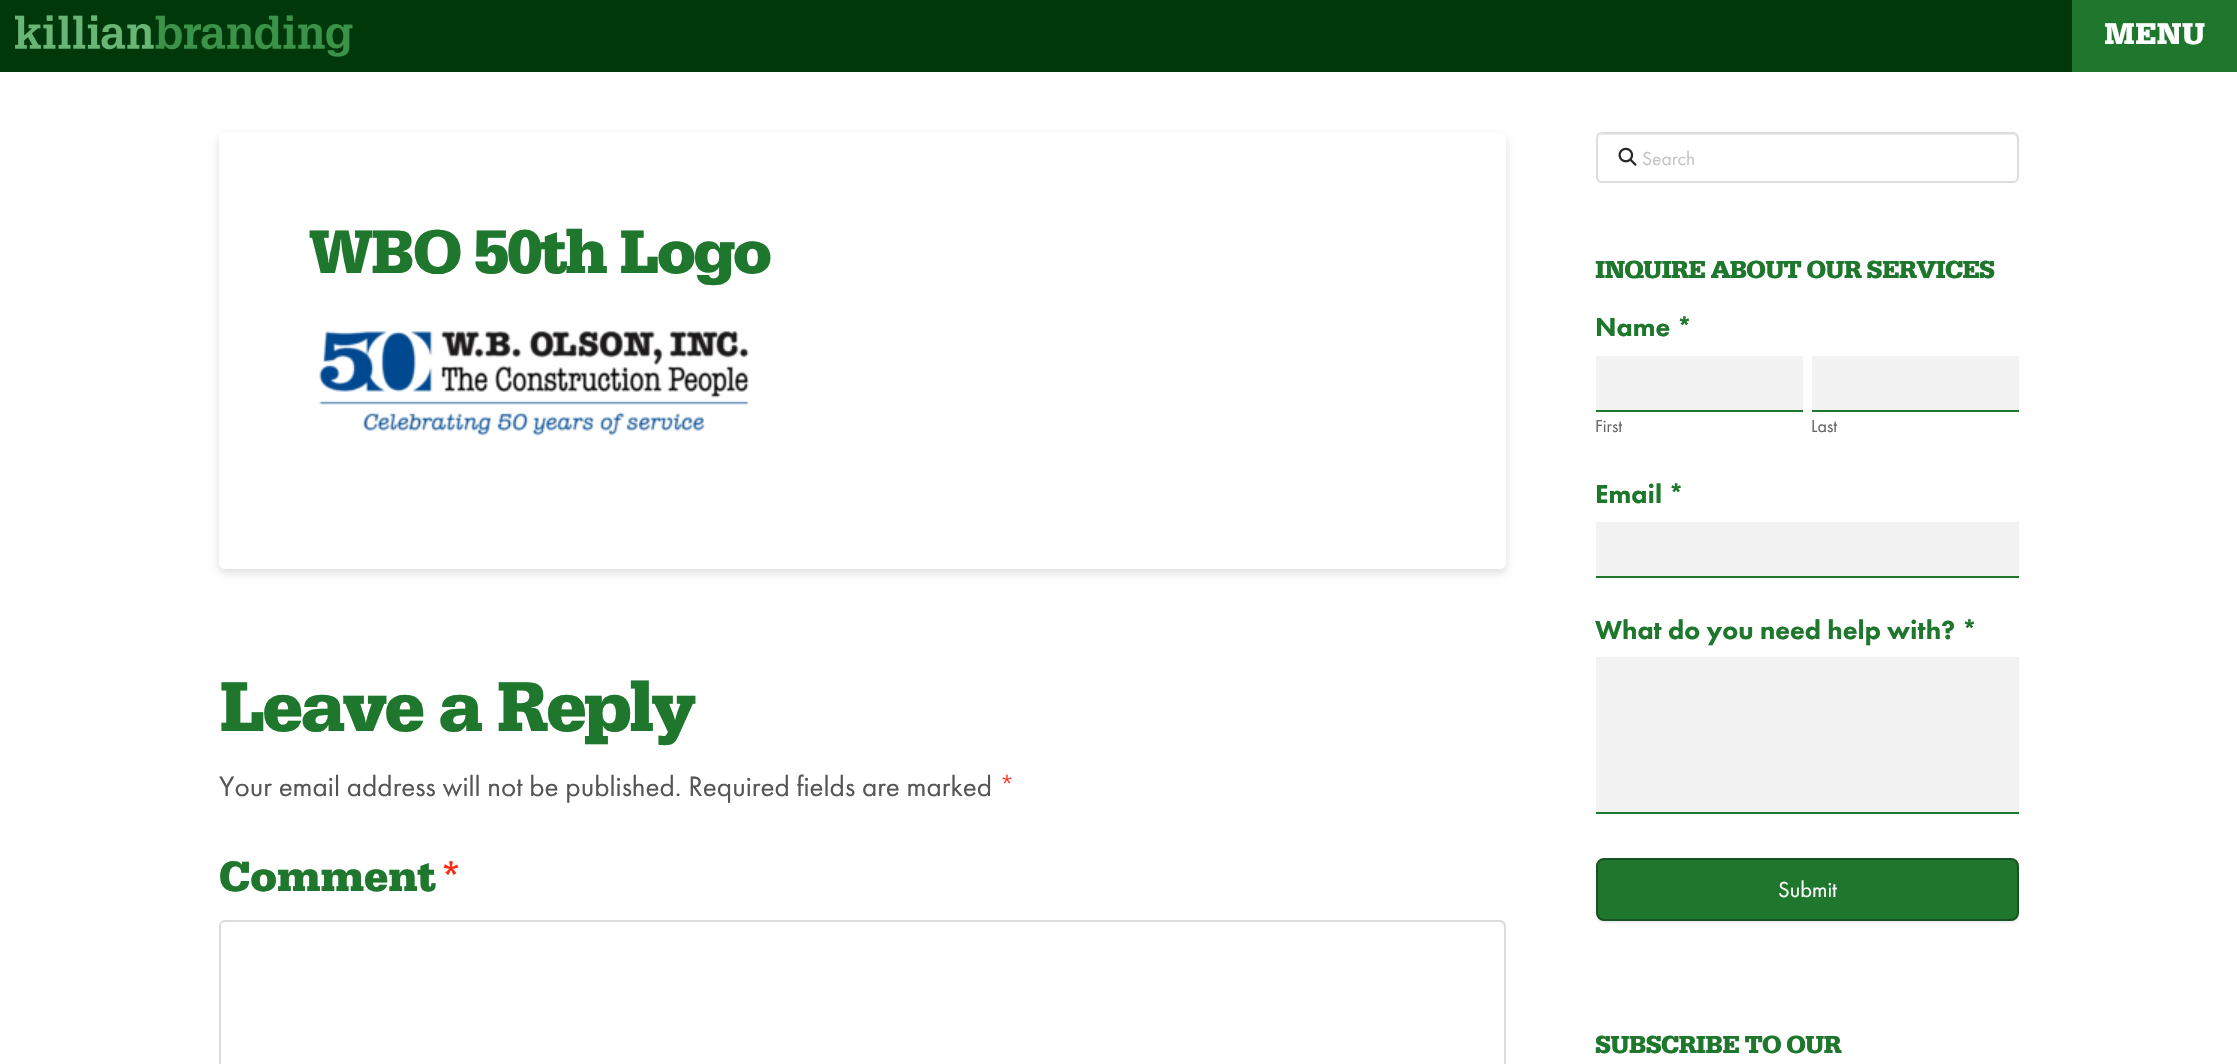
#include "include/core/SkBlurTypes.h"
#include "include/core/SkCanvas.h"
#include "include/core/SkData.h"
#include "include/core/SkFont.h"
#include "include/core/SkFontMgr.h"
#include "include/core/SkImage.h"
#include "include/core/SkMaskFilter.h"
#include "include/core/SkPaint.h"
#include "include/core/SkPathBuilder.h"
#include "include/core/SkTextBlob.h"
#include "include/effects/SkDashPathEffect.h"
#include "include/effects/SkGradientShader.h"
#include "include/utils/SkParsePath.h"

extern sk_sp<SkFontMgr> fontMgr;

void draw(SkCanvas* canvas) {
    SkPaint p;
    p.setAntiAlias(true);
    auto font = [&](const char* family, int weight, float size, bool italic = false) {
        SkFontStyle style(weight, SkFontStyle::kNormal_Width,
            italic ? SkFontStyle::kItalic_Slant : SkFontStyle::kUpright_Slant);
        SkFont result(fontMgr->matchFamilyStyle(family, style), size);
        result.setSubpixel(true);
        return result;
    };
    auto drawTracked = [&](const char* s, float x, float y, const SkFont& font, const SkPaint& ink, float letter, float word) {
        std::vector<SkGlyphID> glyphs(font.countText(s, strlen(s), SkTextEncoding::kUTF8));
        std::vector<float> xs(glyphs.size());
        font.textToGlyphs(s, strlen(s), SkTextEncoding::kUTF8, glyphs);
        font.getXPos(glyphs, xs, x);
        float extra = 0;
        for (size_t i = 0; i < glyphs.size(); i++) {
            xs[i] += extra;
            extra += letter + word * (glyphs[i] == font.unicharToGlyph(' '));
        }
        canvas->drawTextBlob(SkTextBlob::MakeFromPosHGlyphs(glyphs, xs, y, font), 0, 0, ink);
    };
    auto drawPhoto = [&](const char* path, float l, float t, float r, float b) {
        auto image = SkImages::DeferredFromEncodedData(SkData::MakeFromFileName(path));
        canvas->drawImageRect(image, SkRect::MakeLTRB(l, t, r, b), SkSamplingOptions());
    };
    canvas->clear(0xFFFFFFFF);
    p.setColor(0xFF00380A);
    canvas->drawRect(SkRect::MakeLTRB(0, 0, 2072, 72), p);
    drawPhoto("media/1.png", 15, 15, 353, 57);
    p.setColor(0xFF1E772D);
    canvas->drawRect(SkRect::MakeLTRB(2072, 0, 2237, 72), p);
    auto font1 = font("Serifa", 700, 31);
    p.setColor(0xFFFFFFFF);
    canvas->drawString("MENU", 2104, 44, font1, p);
    p.setColor(0x21000000);
    p.setMaskFilter(SkMaskFilter::MakeBlur(kNormal_SkBlurStyle, 4.5f));
    canvas->drawRoundRect(SkRect::MakeLTRB(219, 137, 1506, 573), 6, 6, p);
    p.setMaskFilter(nullptr);
    p.setColor(0xFFFFFFFF);
    canvas->drawRoundRect(SkRect::MakeLTRB(219, 132, 1506, 569), 6, 6, p);
    auto font2 = font("Serifa", 700, 63.75f);
    p.setColor(0xFF1E772D);
    drawTracked("WBO 50th Logo", 309, 273, font2, p, -2.25f, 0);
    drawPhoto("media/2.png", 319, 330, 749, 436);
    auto font3 = font("Serifa", 700, 73);
    drawTracked("Leave a Reply", 219, 731, font3, p, -2.5f, 0);
    auto font4 = font("Futura PT", 400, 29.1f);
    p.setColor(0xFF555555);
    canvas->drawString("Your email address will not be published. Required fields are marked", 219, 796, font4, p);
    auto font5 = font("Futura PT", 300, 29.1f);
    p.setColor(0xFFFF2A13);
    canvas->drawString("*", 999, 796, font5, p);
    auto font6 = font("Serifa", 700, 43.75f);
    p.setColor(0xFF1E772D);
    canvas->drawString("Comment", 219, 891, font6, p);
    auto font7 = font("Serifa", 400, 43.75f);
    p.setColor(0xFFFF2A13);
    canvas->drawString("*", 439, 891, font7, p);
    p.setColor(0xFFECECEC);
    canvas->drawPath(SkPathBuilder().moveTo(225, 922).lineTo(1500, 922).cubicTo(1502, 922, 1504, 925, 1504, 927).lineTo(1504, 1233).cubicTo(1505, 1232, 1505, 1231, 1505, 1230).lineTo(1505, 926).cubicTo(1505, 923, 1503, 921, 1500, 921).lineTo(226, 921).cubicTo(224, 921, 222, 922, 221, 924).cubicTo(222, 923, 224, 922, 225, 922).close().detach(), p);
    p.setStyle(SkPaint::kStroke_Style);
    p.setStrokeWidth(2);
    p.setColor(0xFFDDDDDD);
    canvas->drawRoundRect(SkRect::MakeLTRB(220, 921, 1505, 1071), 5, 5, p);
    p.setStyle(SkPaint::kFill_Style);
    p.setColor(0xFFECECEC);
    canvas->drawPath(SkPathBuilder().moveTo(1602, 135).lineTo(2013, 135).cubicTo(2015, 135, 2018, 137, 2018, 140).cubicTo(2018, 137, 2016, 134, 2013, 134).lineTo(1603, 134).cubicTo(1600, 134, 1598, 137, 1598, 140).cubicTo(1598, 137, 1600, 135, 1602, 135).close().detach(), p);
    p.setStyle(SkPaint::kStroke_Style);
    p.setColor(0xFFDDDDDD);
    canvas->drawRoundRect(SkRect::MakeLTRB(1597, 133, 2018, 182), 5, 5, p);
    drawPhoto("media/3.png", 1618, 147, 1637, 166);
    auto font8 = font("Futura PT", 400, 19.5f);
    p.setStyle(SkPaint::kFill_Style);
    p.setColor(0xFFC5C5C5);
    canvas->drawString("Search", 1642, 165, font8, p);
    auto font9 = font("Serifa", 700, 25.5f);
    p.setColor(0xFF1E772D);
    drawTracked("INQUIRE ABOUT OUR SERVICES", 1595, 278, font9, p, -0.9f, 0);
    auto font10 = font("Futura PT", 900, 27);
    canvas->drawString("Name *", 1595, 336, font10, p);
    p.setColor(0xFFF2F2F2);
    canvas->drawRect(SkRect::MakeLTRB(1596, 356, 1803, 410), p);
    p.setColor(0xFF1E772D);
    canvas->drawRect(SkRect::MakeLTRB(1596, 410, 1803, 412), p);
    auto font11 = font("Futura PT", 400, 18);
    p.setColor(0xFF666666);
    canvas->drawString("First", 1595, 432, font11, p);
    p.setColor(0xFFF2F2F2);
    canvas->drawRect(SkRect::MakeLTRB(1812, 356, 2019, 410), p);
    p.setColor(0xFF1E772D);
    canvas->drawRect(SkRect::MakeLTRB(1812, 410, 2019, 412), p);
    p.setColor(0xFF666666);
    canvas->drawString("Last", 1811, 432, font11, p);
    p.setColor(0xFF1E772D);
    canvas->drawString("Email *", 1595, 503, font10, p);
    p.setColor(0xFFF2F2F2);
    canvas->drawRect(SkRect::MakeLTRB(1596, 522, 2019, 576), p);
    p.setColor(0xFF1E772D);
    canvas->drawRect(SkRect::MakeLTRB(1596, 576, 2019, 578), p);
    canvas->drawString("What do you need help with? *", 1595, 639, font10, p);
    p.setColor(0xFFF2F2F2);
    canvas->drawRect(SkRect::MakeLTRB(1596, 657, 2019, 812), p);
    p.setColor(0xFF1E772D);
    canvas->drawRect(SkRect::MakeLTRB(1596, 812, 2019, 814), p);
    p.setColor(0xFFEEEEEE);
    p.setMaskFilter(SkMaskFilter::MakeBlur(kNormal_SkBlurStyle, 1));
    canvas->drawRoundRect(SkRect::MakeLTRB(1596, 860, 2019, 923), 8, 8, p);
    p.setMaskFilter(nullptr);
    p.setColor(0xFF1E772D);
    canvas->drawRoundRect(SkRect::MakeLTRB(1597, 859, 2018, 920), 7, 7, p);
    p.setStyle(SkPaint::kStroke_Style);
    p.setColor(0xFF155420);
    canvas->drawRoundRect(SkRect::MakeLTRB(1597, 859, 2018, 920), 7, 7, p);
    auto font12 = font("Futura PT", 400, 22.5f);
    p.setStyle(SkPaint::kFill_Style);
    p.setColor(0xFFFFFFFF);
    canvas->drawString("Submit", 1778, 897, font12, p);
    p.setColor(0xFF1E772D);
    drawTracked("SUBSCRIBE TO OUR", 1595, 1053, font9, p, -0.9f, 0);
}
